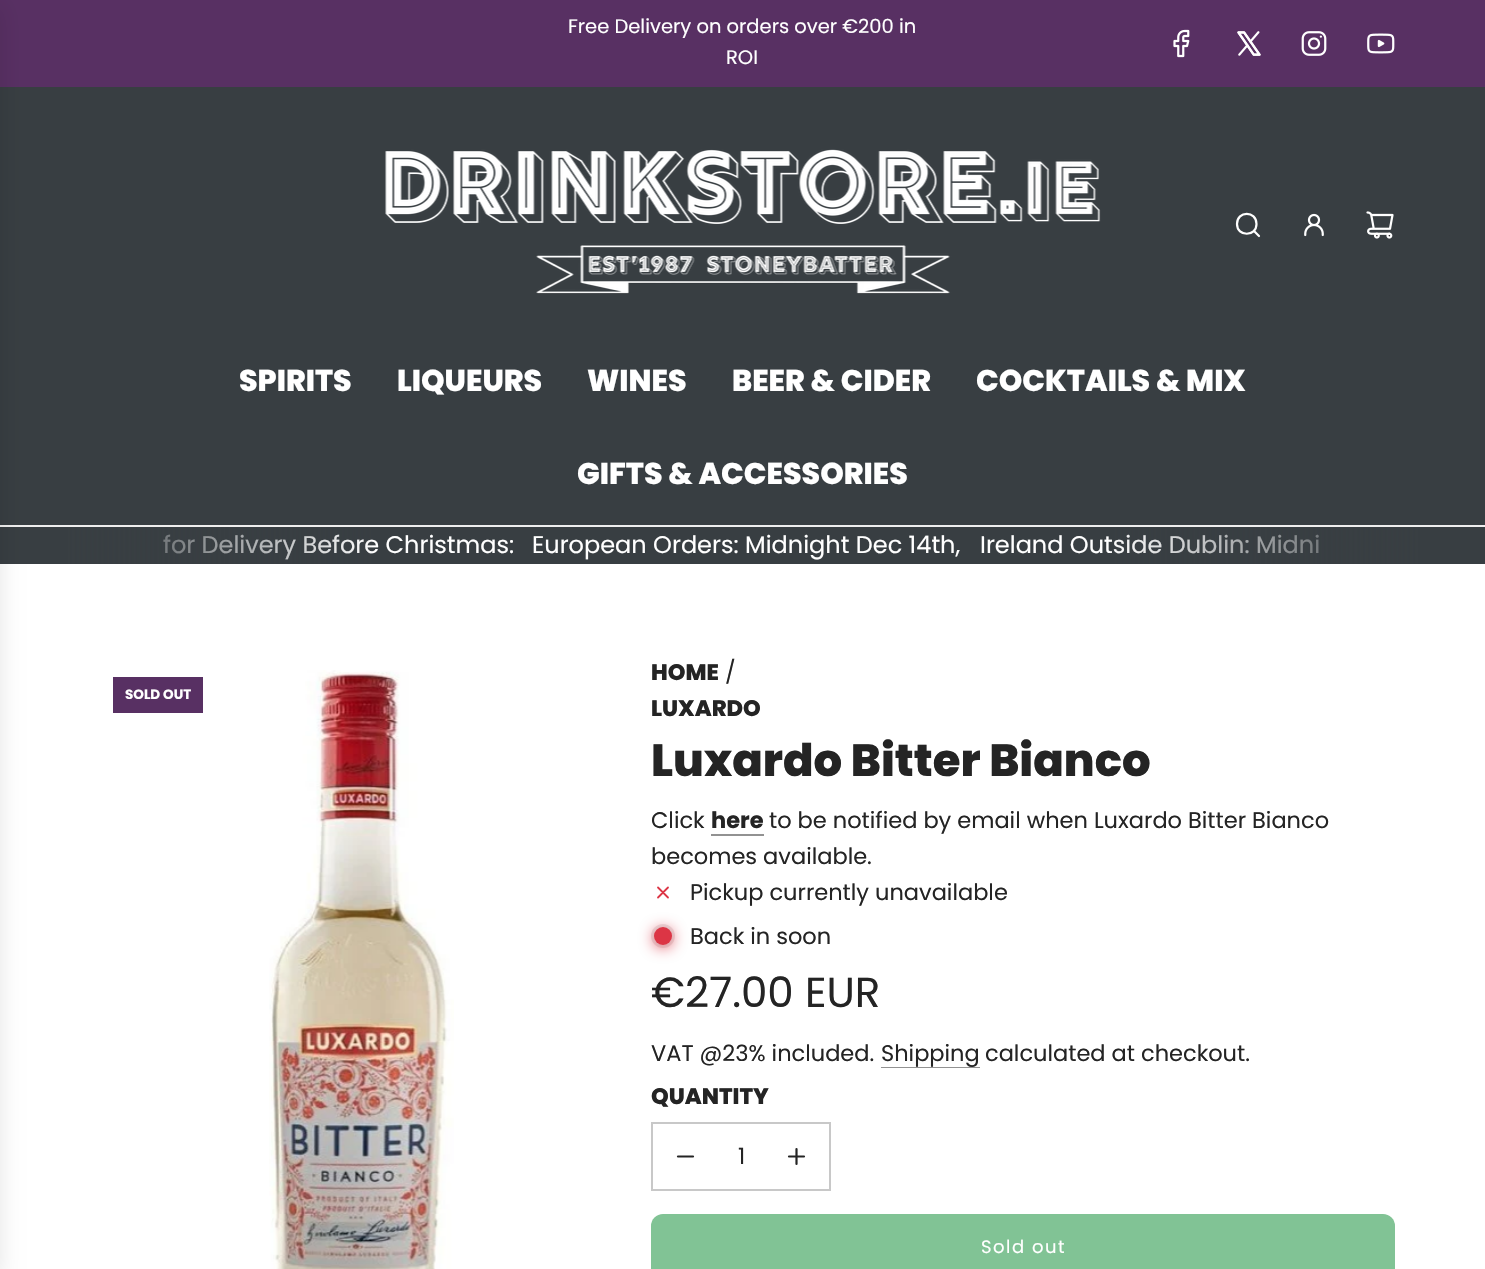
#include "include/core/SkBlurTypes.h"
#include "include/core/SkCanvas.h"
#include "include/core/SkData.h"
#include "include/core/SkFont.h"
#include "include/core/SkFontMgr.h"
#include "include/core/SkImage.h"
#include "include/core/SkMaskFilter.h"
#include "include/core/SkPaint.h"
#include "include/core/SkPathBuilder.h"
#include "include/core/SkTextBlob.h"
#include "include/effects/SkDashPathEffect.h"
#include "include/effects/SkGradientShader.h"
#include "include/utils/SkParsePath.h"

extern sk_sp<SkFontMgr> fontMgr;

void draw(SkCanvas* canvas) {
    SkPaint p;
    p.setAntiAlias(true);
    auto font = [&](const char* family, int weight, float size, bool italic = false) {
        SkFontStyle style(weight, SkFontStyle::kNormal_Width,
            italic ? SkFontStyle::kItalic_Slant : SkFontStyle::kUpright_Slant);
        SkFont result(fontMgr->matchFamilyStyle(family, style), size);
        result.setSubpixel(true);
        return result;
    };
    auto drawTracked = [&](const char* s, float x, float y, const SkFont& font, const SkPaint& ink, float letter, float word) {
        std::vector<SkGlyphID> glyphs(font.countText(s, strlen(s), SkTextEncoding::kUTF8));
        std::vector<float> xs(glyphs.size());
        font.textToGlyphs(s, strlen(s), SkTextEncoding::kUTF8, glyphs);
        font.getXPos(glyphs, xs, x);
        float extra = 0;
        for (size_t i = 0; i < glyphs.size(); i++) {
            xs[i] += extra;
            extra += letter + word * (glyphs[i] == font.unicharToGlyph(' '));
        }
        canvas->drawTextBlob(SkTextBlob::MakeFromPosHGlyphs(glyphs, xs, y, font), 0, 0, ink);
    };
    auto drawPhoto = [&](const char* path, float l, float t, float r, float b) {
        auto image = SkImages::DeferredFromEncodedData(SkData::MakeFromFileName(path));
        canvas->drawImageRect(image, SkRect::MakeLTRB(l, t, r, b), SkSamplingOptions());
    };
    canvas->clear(0xFFFFFFFF);
    p.setColor(0xFF583063);
    canvas->drawRect(SkRect::MakeLTRB(0, 0, 1485, 87), p);
    auto font1 = font("Poppins", 400, 19.5f);
    p.setColor(0xFFFFFFFF);
    canvas->drawString("Free Delivery on orders over €200 in", 568, 33, font1, p);
    canvas->drawString("ROI", 726, 64, font1, p);
    drawPhoto("media/1.png", 1173, 29, 1190, 58);
    drawPhoto("media/2.png", 1237, 31, 1261, 56);
    drawPhoto("media/3.png", 1301, 31, 1327, 56);
    drawPhoto("media/4.png", 1367, 33, 1395, 54);
    {
        const struct { float l, t, r, b; SkColor color; } items[] = {
            {0, 87, 1485, 525, 0xFF383E42},
            {0, 525, 1485, 527, 0xFFEEEEEE},
            {69, 527, 1416, 564, 0xFF383E42},
        };
        for (auto [l, t, r, b, color] : items) {
            p.setColor(color);
            canvas->drawRect(SkRect::MakeLTRB(l, t, r, b), p);
        }
    }
    auto font2 = font("Poppins", 400, 24);
    p.setColor(0xFFFFFFFF);
    canvas->drawString("for Delivery Before Christmas:", 163, 553, font2, p);
    {
        const SkColor colors[] = {0xFF383E42, 0x00383E42};
        const float stops[] = {0.15f, 0.85f};
        const SkPoint ends[] = {{0, 545}, {446, 545}};
        p.setShader(SkGradientShader::MakeLinear(ends, colors, stops, 2, SkTileMode::kClamp));
        p.setAlpha(255);
    }
    canvas->drawRect(SkRect::MakeLTRB(0, 527, 372, 564), p);
    p.setShader(nullptr);
    p.setColor(0x1A000000);
    p.setMaskFilter(SkMaskFilter::MakeBlur(kNormal_SkBlurStyle, 11));
    canvas->drawRect(SkRect::MakeLTRB(-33, 8, 0, 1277), p);
    p.setMaskFilter(nullptr);
    drawPhoto("media/5.png", 385, 149, 1101, 294);
    p.setStyle(SkPaint::kStroke_Style);
    p.setStrokeWidth(2.2f);
    p.setStrokeCap(SkPaint::kRound_Cap);
    p.setStrokeJoin(SkPaint::kRound_Join);
    p.setColor(0xFFFFFFFF);
    canvas->drawPath(SkPathBuilder().moveTo(1254.5f, 231.5f).lineTo(1259, 236).moveTo(1237, 224).cubicTo(1237, 237, 1256.5f, 237, 1256.5f, 224).cubicTo(1256.5f, 210.5f, 1237, 210.5f, 1237, 224).close().detach(), p);
    drawPhoto("media/6.png", 1304, 213, 1324, 237);
    drawPhoto("media/7.png", 1366, 211, 1394, 239);
    auto font3 = font("Poppins", 800, 30);
    p.setStyle(SkPaint::kFill_Style);
    {
        const struct { const char* s; float x, y; } items[] = {
            {"SPIRITS", 239, 391},
            {"LIQUEURS", 397, 391},
            {"WINES", 587, 391},
            {"BEER & CIDER", 732, 391},
            {"COCKTAILS & MIX", 976, 391},
            {"GIFTS & ACCESSORIES", 577, 484},
        };
        for (auto [s, x, y] : items) {
            canvas->drawString(s, x, y, font3, p);
        }
    }
    canvas->drawString("Ireland Outside Dublin: Midni", 980, 553, font2, p);
    {
        const SkColor colors[] = {0xFF383E42, 0x00383E42};
        const float stops[] = {0.15f, 0.85f};
        const SkPoint ends[] = {{1485, 545}, {1040, 545}};
        p.setShader(SkGradientShader::MakeLinear(ends, colors, stops, 2, SkTileMode::kClamp));
        p.setAlpha(255);
    }
    canvas->drawRect(SkRect::MakeLTRB(1114, 527, 1485, 564), p);
    p.setShader(nullptr);
    p.setColor(0xFFFFFFFF);
    canvas->drawString("European Orders: Midnight Dec 14th,", 532, 553, font2, p);
    p.setColor(0xFF583063);
    canvas->drawRect(SkRect::MakeLTRB(113, 677, 203, 713), p);
    auto font4 = font("Poppins", 700, 13.5f);
    p.setColor(0xFFFFFFFF);
    canvas->drawString("SOLD OUT", 125, 699, font4, p);
    drawPhoto("media/8.png", 269, 670, 454, 1269);
    auto font5 = font("Poppins", 800, 22.5f);
    p.setColor(0xFF242424);
    canvas->drawString("HOME", 651, 680, font5, p);
    auto font6 = font("Poppins", 400, 22.5f);
    canvas->drawString("/", 725, 680, font6, p);
    canvas->drawString("LUXARDO", 651, 716, font5, p);
    auto font7 = font("Poppins", 800, 45);
    canvas->drawString("Luxardo Bitter Bianco", 651, 776, font7, p);
    canvas->drawString("Click", 651, 828, font6, p);
    auto font8 = font("Poppins", 700, 22.5f);
    canvas->drawString("here", 711, 828, font8, p);
    p.setColor(0xFF929292);
    canvas->drawRect(SkRect::MakeLTRB(711, 834, 764, 836), p);
    p.setColor(0xFF242424);
    canvas->drawString("to be notified by email when Luxardo Bitter Bianco", 769, 828, font6, p);
    canvas->drawString("becomes available.", 651, 864, font6, p);
    p.setStyle(SkPaint::kStroke_Style);
    p.setStrokeWidth(1.8f);
    p.setColor(0xFFDC3545);
    canvas->drawPath(SkPathBuilder().moveTo(658, 897.5f).lineTo(663, 892.5f).lineTo(668, 897.5f).moveTo(668, 887.5f).lineTo(663, 892.5f).lineTo(658, 887.5f).detach(), p);
    p.setStyle(SkPaint::kFill_Style);
    p.setColor(0xFF242424);
    canvas->drawString("Pickup currently unavailable", 690, 900, font6, p);
    p.setColor(0xFFE9E9E9);
    canvas->drawCircle(663, 936, 12, p);
    p.setColor(0xFFDC3545);
    p.setMaskFilter(SkMaskFilter::MakeBlur(kNormal_SkBlurStyle, 7.5f));
    canvas->drawRoundRect(SkRect::MakeLTRB(654, 929, 672, 947), 9, 9, p);
    p.setMaskFilter(nullptr);
    canvas->drawCircle(663, 936, 9, p);
    p.setColor(0xFF242424);
    canvas->drawString("Back in soon", 690, 944, font6, p);
    auto font9 = font("Poppins", 400, 42);
    canvas->drawString("€27.00 EUR", 651, 1007, font9, p);
    canvas->drawString("VAT @23% included.", 651, 1061, font6, p);
    p.setColor(0xFF929292);
    canvas->drawRect(SkRect::MakeLTRB(881, 1067, 980, 1068), p);
    p.setColor(0xFF242424);
    canvas->drawString("Shipping", 881, 1061, font6, p);
    canvas->drawString("calculated at checkout.", 985, 1061, font6, p);
    canvas->drawString("QUANTITY", 651, 1104, font5, p);
    p.setStyle(SkPaint::kStroke_Style);
    p.setStrokeWidth(2);
    p.setStrokeCap(SkPaint::kButt_Cap);
    p.setStrokeJoin(SkPaint::kMiter_Join);
    p.setColor(0xFFC8C8C8);
    canvas->drawRect(SkRect::MakeLTRB(652, 1123, 830, 1190), p);
    p.setStrokeWidth(2.2f);
    p.setStrokeCap(SkPaint::kRound_Cap);
    p.setStrokeJoin(SkPaint::kRound_Join);
    p.setColor(0xFF242424);
    canvas->drawPath(SkPathBuilder().moveTo(678, 1156.5f).lineTo(693, 1156.5f).detach(), p);
    p.setStyle(SkPaint::kFill_Style);
    canvas->drawString("1", 738, 1164, font6, p);
    p.setStyle(SkPaint::kStroke_Style);
    canvas->drawPath(SkPathBuilder().moveTo(789, 1156.5f).lineTo(796.5f, 1156.5f).moveTo(796.5f, 1156.5f).lineTo(804, 1156.5f).moveTo(796.5f, 1156.5f).lineTo(796.5f, 1149).moveTo(796.5f, 1156.5f).lineTo(796.5f, 1164).detach(), p);
    p.setStyle(SkPaint::kFill_Style);
    p.setColor(0xFF81C395);
    canvas->drawRoundRect(SkRect::MakeLTRB(651, 1214, 1395, 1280), 12, 12, p);
    auto font10 = font("Poppins", 400, 18);
    p.setColor(0xFFFFFFFF);
    drawTracked("Sold out", 981, 1253, font10, p, 1.5f, 0);
}
